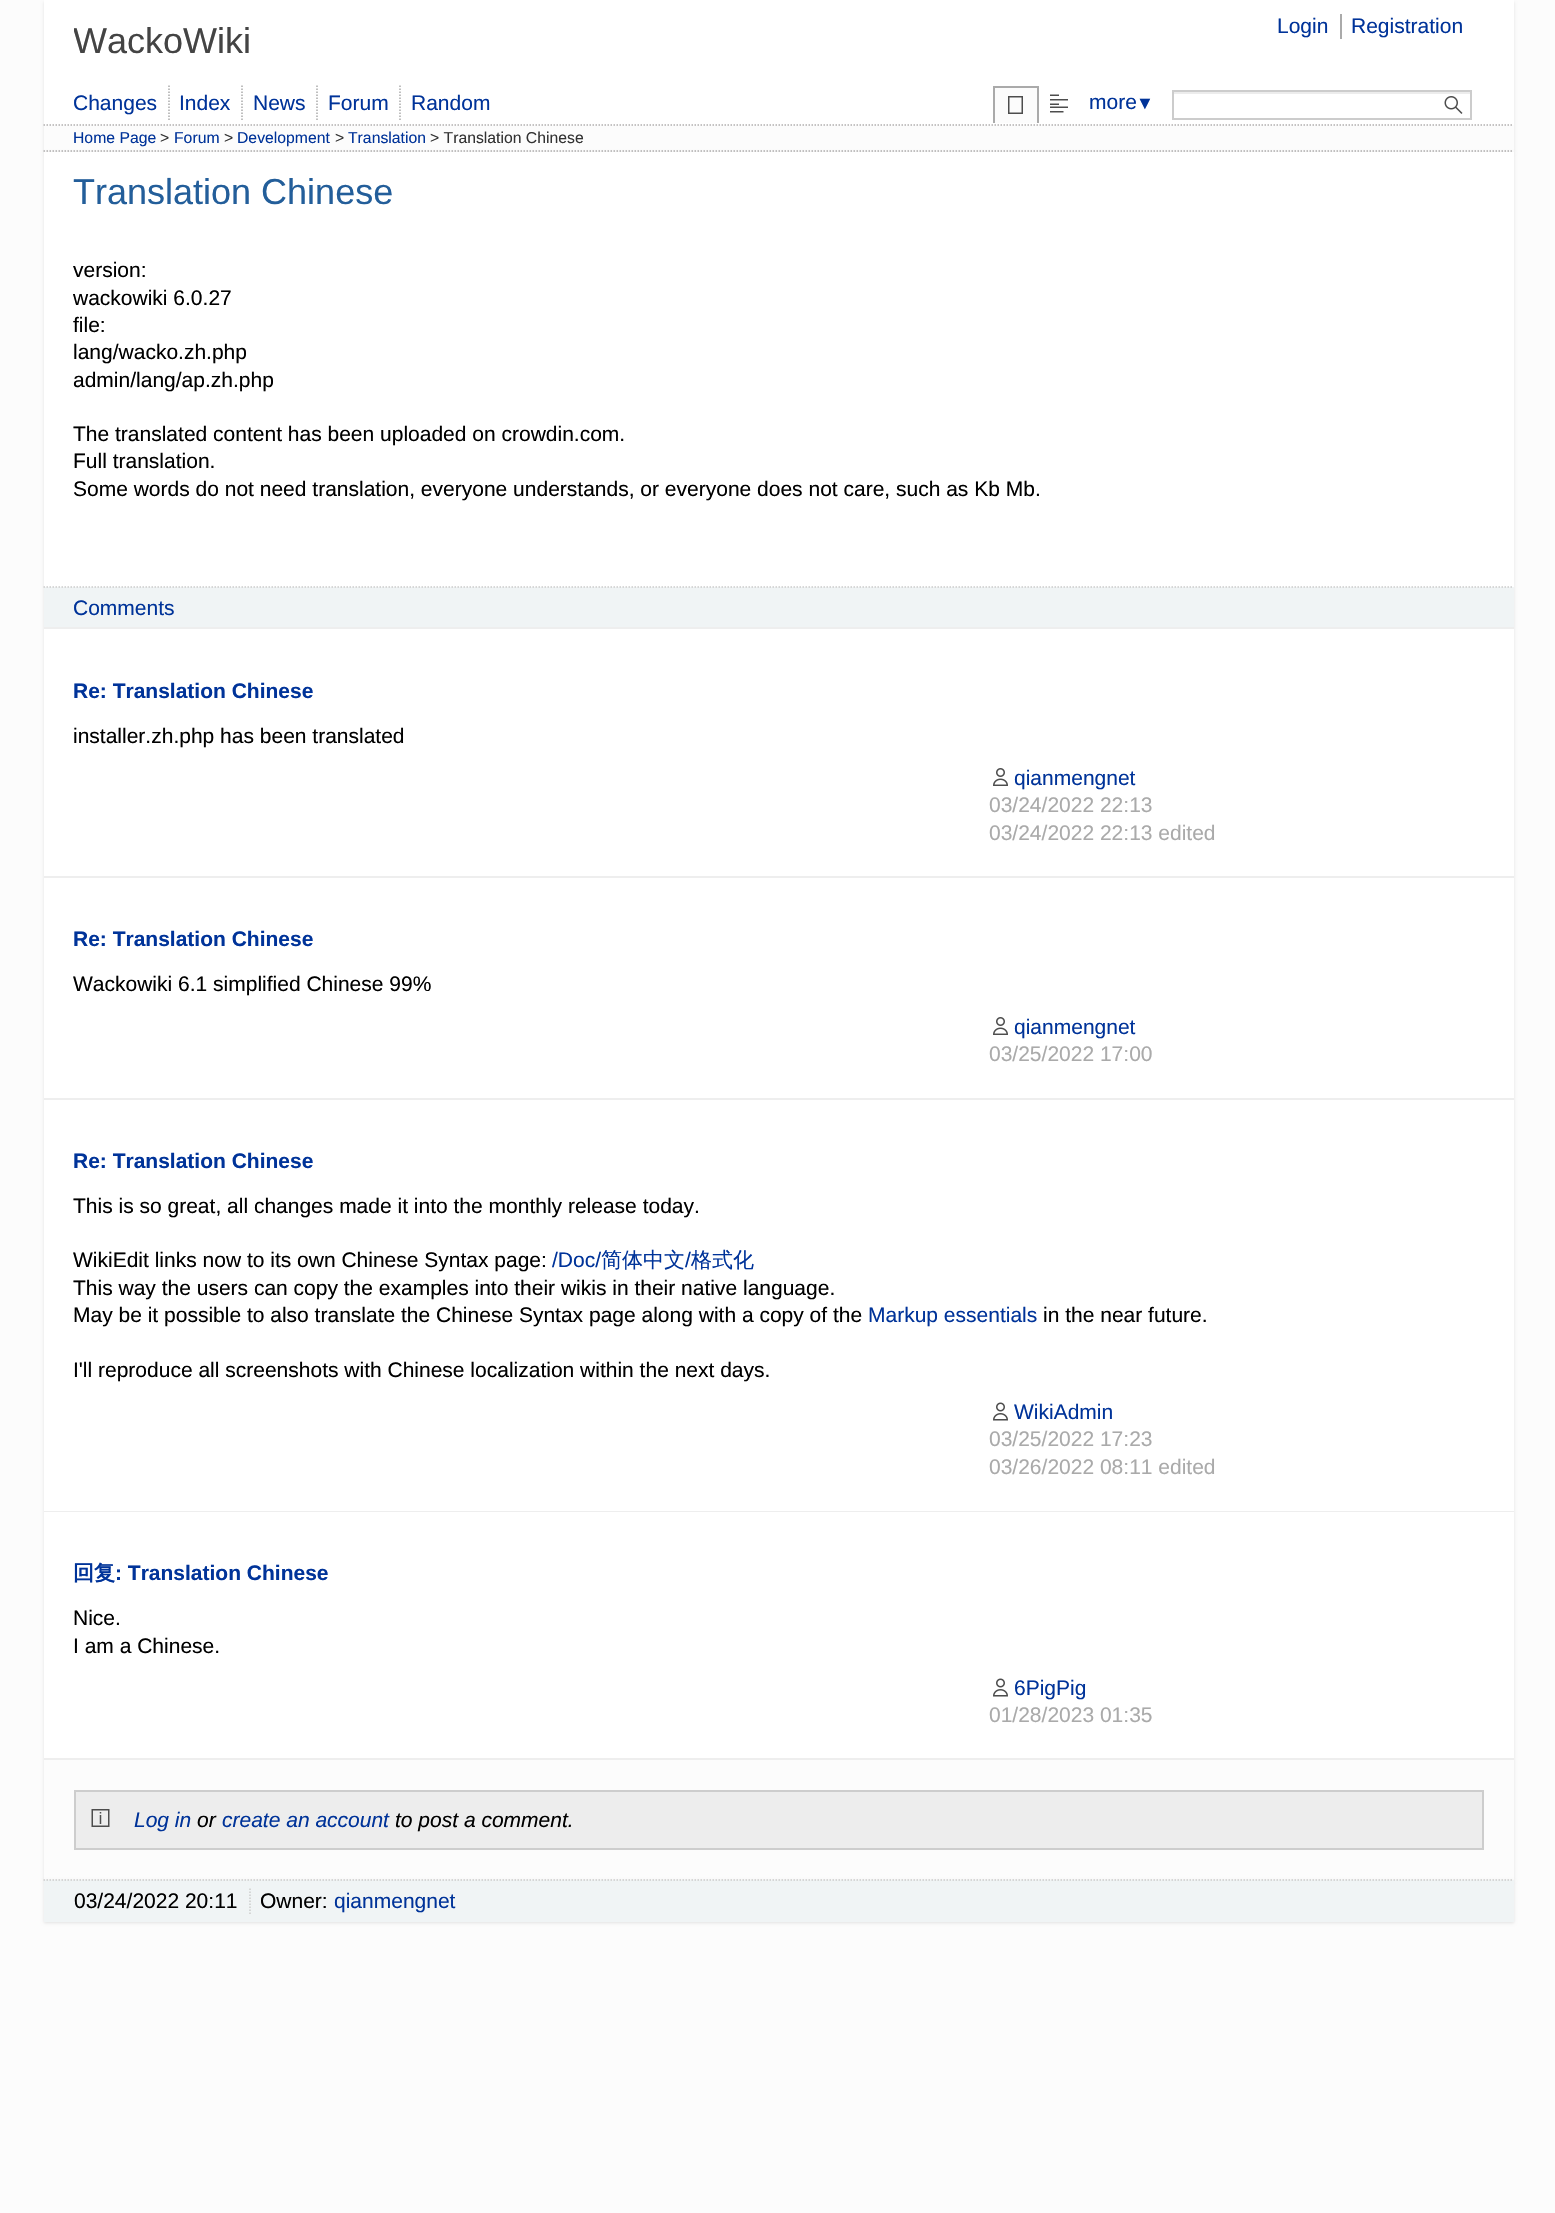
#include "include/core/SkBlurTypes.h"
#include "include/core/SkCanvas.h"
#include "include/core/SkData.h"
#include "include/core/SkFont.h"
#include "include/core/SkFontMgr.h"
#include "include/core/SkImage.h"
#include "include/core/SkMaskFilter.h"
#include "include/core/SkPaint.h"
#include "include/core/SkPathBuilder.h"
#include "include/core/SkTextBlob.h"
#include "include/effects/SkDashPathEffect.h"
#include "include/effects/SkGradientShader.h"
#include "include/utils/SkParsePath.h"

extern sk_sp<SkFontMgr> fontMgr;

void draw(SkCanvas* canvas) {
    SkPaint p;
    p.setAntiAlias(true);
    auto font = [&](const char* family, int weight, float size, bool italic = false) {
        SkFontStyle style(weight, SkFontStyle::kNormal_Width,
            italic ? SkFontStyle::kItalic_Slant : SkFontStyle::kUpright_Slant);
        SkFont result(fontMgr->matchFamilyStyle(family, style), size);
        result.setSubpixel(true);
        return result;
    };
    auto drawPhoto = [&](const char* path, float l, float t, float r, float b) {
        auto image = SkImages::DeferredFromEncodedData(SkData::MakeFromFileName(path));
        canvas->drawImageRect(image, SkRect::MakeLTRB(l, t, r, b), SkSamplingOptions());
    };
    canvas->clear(0xFFFCFCFC);
    p.setColor(0x1A000000);
    p.setMaskFilter(SkMaskFilter::MakeBlur(kNormal_SkBlurStyle, 1.5f));
    canvas->drawRect(SkRect::MakeLTRB(44, 2, 1514, 153), p);
    p.setMaskFilter(nullptr);
    p.setColor(0xFFFFFFFF);
    canvas->drawRect(SkRect::MakeLTRB(44, 0, 1514, 125), p);
    canvas->save();
    canvas->clipRect(SkRect::MakeLTRB(74, 14, 251, 71));
    auto font1 = font("Liberation Sans", 400, 36);
    p.setColor(0xFF444444);
    canvas->drawString("WackoWiki", 73, 53, font1, p);
    canvas->restore();
    auto font2 = font("Liberation Sans", 400, 21);
    p.setColor(0xFF003399);
    canvas->drawString("Login", 1277, 33, font2, p);
    p.setColor(0xFFAAAAAA);
    canvas->drawRect(SkRect::MakeLTRB(1340, 14, 1342, 39), p);
    p.setColor(0xFF003399);
    canvas->drawString("Registration", 1351, 33, font2, p);
    canvas->drawString("Changes", 73, 110, font2, p);
    p.setStyle(SkPaint::kStroke_Style);
    p.setStrokeWidth(1.5f);
    p.setColor(0xFFAAAAAA);
    p.setPathEffect(SkDashPathEffect::Make({{1.5f, 1.5f}}, 0));
    canvas->drawPath(SkPathBuilder().moveTo(169, 85.5f).lineTo(169, 120).detach(), p);
    p.setPathEffect(nullptr);
    p.setStyle(SkPaint::kFill_Style);
    p.setColor(0xFF003399);
    canvas->drawString("Index", 179, 110, font2, p);
    p.setStyle(SkPaint::kStroke_Style);
    p.setColor(0xFFAAAAAA);
    p.setPathEffect(SkDashPathEffect::Make({{1.5f, 1.5f}}, 0));
    canvas->drawPath(SkPathBuilder().moveTo(242, 85.5f).lineTo(242, 120).detach(), p);
    p.setPathEffect(nullptr);
    p.setStyle(SkPaint::kFill_Style);
    p.setColor(0xFF003399);
    canvas->drawString("News", 253, 110, font2, p);
    p.setStyle(SkPaint::kStroke_Style);
    p.setColor(0xFFAAAAAA);
    p.setPathEffect(SkDashPathEffect::Make({{1.5f, 1.5f}}, 0));
    canvas->drawPath(SkPathBuilder().moveTo(317, 85.5f).lineTo(317, 120).detach(), p);
    p.setPathEffect(nullptr);
    p.setStyle(SkPaint::kFill_Style);
    p.setColor(0xFF003399);
    canvas->drawString("Forum", 328, 110, font2, p);
    p.setStyle(SkPaint::kStroke_Style);
    p.setColor(0xFFAAAAAA);
    p.setPathEffect(SkDashPathEffect::Make({{1.5f, 1.5f}}, 0));
    canvas->drawPath(SkPathBuilder().moveTo(400, 85.5f).lineTo(400, 120).detach(), p);
    p.setPathEffect(nullptr);
    p.setStyle(SkPaint::kFill_Style);
    p.setColor(0xFF003399);
    canvas->drawString("Random", 411, 110, font2, p);
    {
        const struct { float l, t, r, b; SkColor color; } items[] = {
            {995, 88, 1037, 123, 0xFFFCFCFC},
            {993, 86, 1038, 88, 0xFFAAAAAA},
            {1037, 86, 1039, 123, 0xFFAAAAAA},
            {993, 86, 995, 123, 0xFFAAAAAA},
        };
        for (auto [l, t, r, b, color] : items) {
            p.setColor(color);
            canvas->drawRect(SkRect::MakeLTRB(l, t, r, b), p);
        }
    }
    drawPhoto("media/1.png", 1008, 96, 1023, 114);
    drawPhoto("media/2.png", 1050, 94, 1068, 113);
    p.setColor(0xFF003399);
    canvas->drawString("more", 1089, 109, font2, p);
    auto font3 = font("Liberation Sans", 400, 18);
    canvas->drawString("▼", 1136, 109, font3, p);
    p.setColor(0xFFECECEC);
    canvas->drawRect(SkRect::MakeLTRB(1173, 92, 1470, 94), p);
    p.setStyle(SkPaint::kStroke_Style);
    p.setStrokeWidth(2);
    p.setColor(0xFFCCCCCC);
    canvas->drawRect(SkRect::MakeLTRB(1173, 91, 1471, 119), p);
    drawPhoto("media/3.png", 1444, 96, 1463, 114);
    p.setStyle(SkPaint::kFill_Style);
    p.setColor(0xFFFCFCFC);
    canvas->drawRect(SkRect::MakeLTRB(44, 125, 1514, 152), p);
    p.setStyle(SkPaint::kStroke_Style);
    p.setStrokeWidth(1.5f);
    p.setColor(0xFFB2B0B0);
    p.setPathEffect(SkDashPathEffect::Make({{1.5f, 1.5f}}, 0));
    canvas->drawPath(SkPathBuilder().moveTo(43.5f, 125).lineTo(1513.5f, 125).detach(), p);
    p.setPathEffect(nullptr);
    p.setPathEffect(SkDashPathEffect::Make({{1.5f, 1.5f}}, 0));
    canvas->drawPath(SkPathBuilder().moveTo(43.5f, 151).lineTo(1513.5f, 151).detach(), p);
    p.setPathEffect(nullptr);
    auto font4 = font("Liberation Sans", 400, 15.75f);
    p.setStyle(SkPaint::kFill_Style);
    p.setColor(0xFF003399);
    canvas->drawString("Home Page", 73, 143, font4, p);
    p.setColor(0xFF333333);
    canvas->drawString(">", 160, 143, font4, p);
    p.setColor(0xFF003399);
    canvas->drawString("Forum", 174, 143, font4, p);
    p.setColor(0xFF333333);
    canvas->drawString(">", 224, 143, font4, p);
    p.setColor(0xFF003399);
    canvas->drawString("Development", 237, 143, font4, p);
    p.setColor(0xFF333333);
    canvas->drawString(">", 335, 143, font4, p);
    p.setColor(0xFF003399);
    canvas->drawString("Translation", 348, 143, font4, p);
    p.setColor(0xFF333333);
    canvas->drawString("> Translation Chinese", 430, 143, font4, p);
    p.setColor(0x1A000000);
    p.setMaskFilter(SkMaskFilter::MakeBlur(kNormal_SkBlurStyle, 1.5f));
    canvas->drawRect(SkRect::MakeLTRB(44, 153, 1514, 1881), p);
    p.setMaskFilter(nullptr);
    p.setColor(0xFFFFFFFF);
    canvas->drawRect(SkRect::MakeLTRB(44, 152, 1514, 1511), p);
    p.setColor(0xFF235E9A);
    canvas->drawString("Translation Chinese", 73, 204, font1, p);
    p.setColor(0xFF000000);
    {
        const struct { const char* s; float x, y; } items[] = {
            {"version:", 73, 277},
            {"wackowiki 6.0.27", 73, 305},
            {"file:", 73, 332},
            {"lang/wacko.zh.php", 73, 359},
            {"admin/lang/ap.zh.php", 73, 387},
            {"The translated content has been uploaded on crowdin.com.", 73, 441},
            {"Full translation.", 73, 468},
            {"Some words do not need translation, everyone understands, or everyone does not care, such as Kb Mb.", 73, 496},
        };
        for (auto [s, x, y] : items) {
            canvas->drawString(s, x, y, font2, p);
        }
    }
    p.setColor(0xFFF0F4F5);
    canvas->drawRect(SkRect::MakeLTRB(44, 587, 1514, 627), p);
    p.setStyle(SkPaint::kStroke_Style);
    p.setColor(0xFFCCCCCC);
    p.setPathEffect(SkDashPathEffect::Make({{1.5f, 1.5f}}, 0));
    canvas->drawPath(SkPathBuilder().moveTo(43.5f, 587).lineTo(1513.5f, 587).detach(), p);
    p.setPathEffect(nullptr);
    p.setStyle(SkPaint::kFill_Style);
    p.setColor(0xFFEEEEEE);
    canvas->drawRect(SkRect::MakeLTRB(44, 627, 1514, 629), p);
    p.setColor(0xFF003399);
    canvas->drawString("Comments", 73, 615, font2, p);
    p.setColor(0xFFEEEEEE);
    canvas->drawRect(SkRect::MakeLTRB(44, 876, 1514, 878), p);
    auto font5 = font("Liberation Sans", 700, 21);
    p.setColor(0xFF003399);
    canvas->drawString("Re: Translation Chinese", 73, 698, font5, p);
    p.setColor(0xFF000000);
    canvas->drawString("installer.zh.php has been translated", 73, 743, font2, p);
    drawPhoto("media/4.png", 993, 768, 1008, 786);
    p.setColor(0xFF003399);
    canvas->drawString("qianmengnet", 1014, 785, font2, p);
    p.setColor(0xFFAAAAAA);
    canvas->drawString("03/24/2022 22:13", 989, 812, font2, p);
    canvas->drawString("03/24/2022 22:13 edited", 989, 840, font2, p);
    p.setColor(0xFFEEEEEE);
    canvas->drawRect(SkRect::MakeLTRB(44, 1098, 1514, 1100), p);
    p.setColor(0xFF003399);
    canvas->drawString("Re: Translation Chinese", 73, 946, font5, p);
    p.setColor(0xFF000000);
    canvas->drawString("Wackowiki 6.1 simplified Chinese 99%", 73, 991, font2, p);
    drawPhoto("media/4.png", 993, 1017, 1008, 1035);
    p.setColor(0xFF003399);
    canvas->drawString("qianmengnet", 1014, 1034, font2, p);
    p.setColor(0xFFAAAAAA);
    canvas->drawString("03/25/2022 17:00", 989, 1061, font2, p);
    p.setColor(0xFFEEEEEE);
    canvas->drawRect(SkRect::MakeLTRB(44, 1511, 1514, 1512), p);
    p.setColor(0xFF003399);
    canvas->drawString("Re: Translation Chinese", 73, 1168, font5, p);
    p.setColor(0xFF000000);
    canvas->drawString("This is so great, all changes made it into the monthly release today.", 73, 1213, font2, p);
    canvas->drawString("WikiEdit links now to its own Chinese Syntax page:", 73, 1267, font2, p);
    p.setColor(0xFF003399);
    canvas->drawString("/Doc/", 552, 1267, font2, p);
    auto font6 = font("WenQuanYi Zen Hei", 500, 21);
    canvas->drawString("简体中文", 601, 1267, font6, p);
    canvas->drawString("/", 685, 1267, font2, p);
    canvas->drawString("格式化", 691, 1267, font6, p);
    p.setColor(0xFF000000);
    canvas->drawString("This way the users can copy the examples into their wikis in their native language.", 73, 1295, font2, p);
    canvas->drawString("May be it possible to also translate the Chinese Syntax page along with a copy of the", 73, 1322, font2, p);
    p.setColor(0xFF003399);
    canvas->drawString("Markup essentials", 868, 1322, font2, p);
    p.setColor(0xFF000000);
    canvas->drawString("in the near future.", 1043, 1322, font2, p);
    canvas->drawString("I'll reproduce all screenshots with Chinese localization within the next days.", 73, 1377, font2, p);
    drawPhoto("media/5.png", 993, 1402, 1008, 1421);
    p.setColor(0xFF003399);
    canvas->drawString("WikiAdmin", 1014, 1419, font2, p);
    p.setColor(0xFFAAAAAA);
    canvas->drawString("03/25/2022 17:23", 989, 1446, font2, p);
    canvas->drawString("03/26/2022 08:11 edited", 989, 1474, font2, p);
    p.setColor(0xFFFFFFFF);
    canvas->drawRect(SkRect::MakeLTRB(44, 1512, 1514, 1758), p);
    p.setColor(0xFFEEEEEE);
    canvas->drawRect(SkRect::MakeLTRB(44, 1758, 1514, 1760), p);
    auto font7 = font("WenQuanYi Zen Hei", 700, 21);
    p.setColor(0xFF003399);
    canvas->drawString("回复", 73, 1580, font7, p);
    canvas->drawString(": Translation Chinese", 115, 1580, font5, p);
    p.setColor(0xFF000000);
    canvas->drawString("Nice.", 73, 1625, font2, p);
    canvas->drawString("I am a Chinese.", 73, 1653, font2, p);
    drawPhoto("media/5.png", 993, 1678, 1008, 1697);
    p.setColor(0xFF003399);
    canvas->drawString("6PigPig", 1014, 1695, font2, p);
    p.setColor(0xFFAAAAAA);
    canvas->drawString("01/28/2023 01:35", 989, 1722, font2, p);
    p.setColor(0xFFFCFCFC);
    canvas->drawRect(SkRect::MakeLTRB(44, 1760, 1514, 1880), p);
    p.setColor(0xFFEDEDED);
    canvas->drawRect(SkRect::MakeLTRB(75, 1791, 1483, 1849), p);
    p.setStyle(SkPaint::kStroke_Style);
    p.setStrokeWidth(2);
    p.setColor(0xFFCDCDCD);
    canvas->drawRect(SkRect::MakeLTRB(75, 1791, 1483, 1849), p);
    drawPhoto("media/6.png", 91, 1809, 110, 1827);
    auto font8 = font("Liberation Sans", 400, 21, true);
    p.setStyle(SkPaint::kFill_Style);
    p.setColor(0xFF003399);
    canvas->drawString("Log in", 134, 1827, font8, p);
    p.setColor(0xFF000000);
    canvas->drawString("or", 197, 1827, font8, p);
    p.setColor(0xFF003399);
    canvas->drawString("create an account", 222, 1827, font8, p);
    p.setColor(0xFF000000);
    canvas->drawString("to post a comment.", 395, 1827, font8, p);
    p.setColor(0x1A000000);
    p.setMaskFilter(SkMaskFilter::MakeBlur(kNormal_SkBlurStyle, 1.5f));
    canvas->drawRect(SkRect::MakeLTRB(44, 1881, 1514, 1923), p);
    p.setMaskFilter(nullptr);
    p.setColor(0xFFF0F4F5);
    canvas->drawRect(SkRect::MakeLTRB(44, 1880, 1514, 1922), p);
    p.setStyle(SkPaint::kStroke_Style);
    p.setStrokeWidth(1.5f);
    p.setColor(0xFFCCCCCC);
    p.setPathEffect(SkDashPathEffect::Make({{1.5f, 1.5f}}, 0));
    canvas->drawPath(SkPathBuilder().moveTo(43.5f, 1880).lineTo(1513.5f, 1880).detach(), p);
    p.setPathEffect(nullptr);
    p.setStyle(SkPaint::kFill_Style);
    p.setColor(0xFF000000);
    canvas->drawString("03/24/2022 20:11", 74, 1908, font2, p);
    p.setStyle(SkPaint::kStroke_Style);
    p.setColor(0xFFCCCCCC);
    p.setPathEffect(SkDashPathEffect::Make({{1.5f, 1.5f}}, 0));
    canvas->drawPath(SkPathBuilder().moveTo(250, 1888.5f).lineTo(250, 1914).detach(), p);
    p.setPathEffect(nullptr);
    p.setStyle(SkPaint::kFill_Style);
    p.setColor(0xFF000000);
    canvas->drawString("Owner:", 260, 1908, font2, p);
    p.setColor(0xFF003399);
    canvas->drawString("qianmengnet", 334, 1908, font2, p);
}
